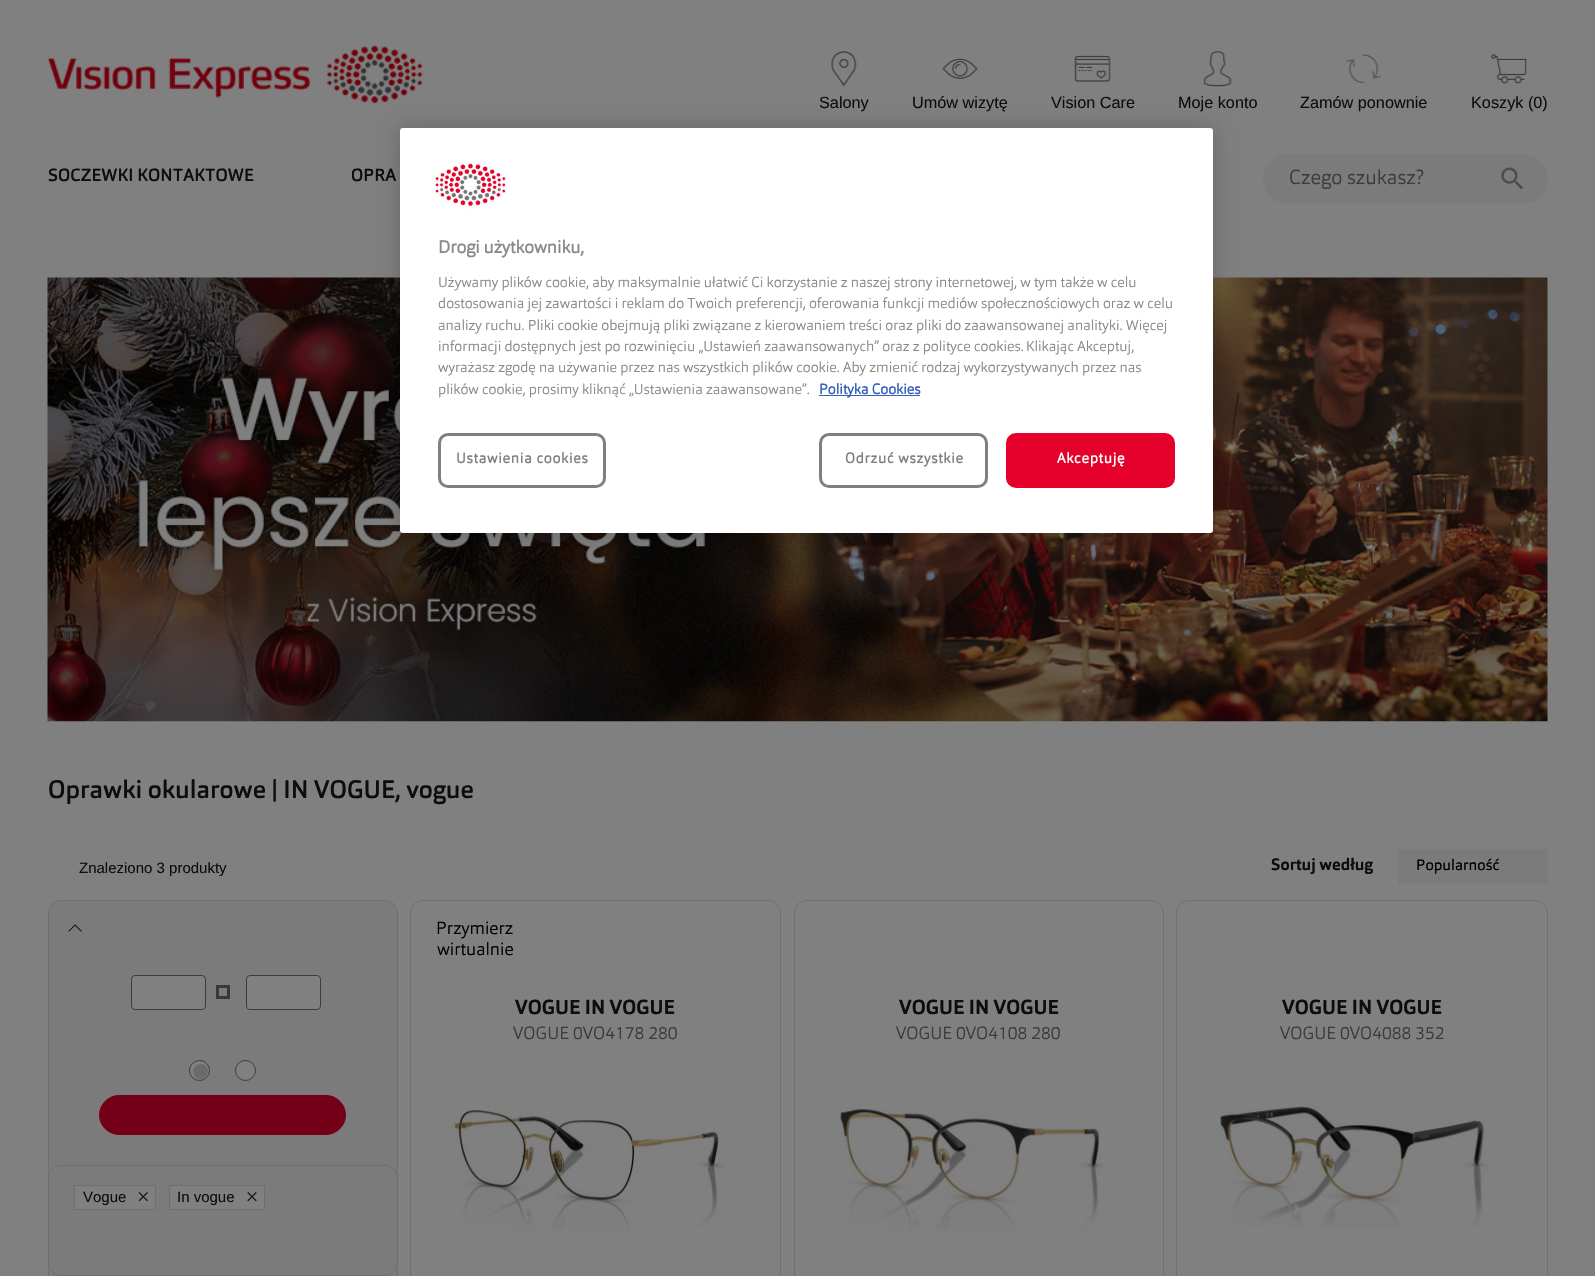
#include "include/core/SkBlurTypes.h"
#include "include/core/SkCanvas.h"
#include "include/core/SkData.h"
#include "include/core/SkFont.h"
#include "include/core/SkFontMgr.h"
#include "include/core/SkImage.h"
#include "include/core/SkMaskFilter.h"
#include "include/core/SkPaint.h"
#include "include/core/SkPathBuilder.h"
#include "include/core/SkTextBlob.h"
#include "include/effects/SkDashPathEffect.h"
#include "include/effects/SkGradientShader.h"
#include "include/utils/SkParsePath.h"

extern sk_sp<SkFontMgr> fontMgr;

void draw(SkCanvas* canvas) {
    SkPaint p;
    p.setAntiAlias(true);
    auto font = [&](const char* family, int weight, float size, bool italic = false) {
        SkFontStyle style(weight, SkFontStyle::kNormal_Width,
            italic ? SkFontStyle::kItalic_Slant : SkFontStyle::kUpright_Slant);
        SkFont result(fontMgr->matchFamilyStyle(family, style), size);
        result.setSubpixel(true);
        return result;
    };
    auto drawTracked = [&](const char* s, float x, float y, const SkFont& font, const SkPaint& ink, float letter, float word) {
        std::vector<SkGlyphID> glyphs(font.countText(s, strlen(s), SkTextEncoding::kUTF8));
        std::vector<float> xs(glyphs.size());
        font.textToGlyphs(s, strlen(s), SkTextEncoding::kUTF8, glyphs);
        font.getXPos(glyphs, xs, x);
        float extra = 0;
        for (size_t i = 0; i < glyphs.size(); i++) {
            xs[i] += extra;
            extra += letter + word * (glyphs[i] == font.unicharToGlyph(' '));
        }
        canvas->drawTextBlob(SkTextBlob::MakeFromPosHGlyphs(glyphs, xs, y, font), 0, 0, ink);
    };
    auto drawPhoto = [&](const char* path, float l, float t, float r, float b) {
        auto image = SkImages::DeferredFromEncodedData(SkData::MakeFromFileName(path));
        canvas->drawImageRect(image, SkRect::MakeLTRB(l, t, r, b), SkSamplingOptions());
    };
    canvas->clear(0xFF808080);
    drawPhoto("media/1.png", 47, 45, 423, 104);
    drawPhoto("media/2.png", 831, 51, 857, 87);
    auto font1 = font("Liberation Sans", 400, 16.25f);
    p.setColor(0xFF0D0D0D);
    canvas->drawString("Salony", 819, 108, font1, p);
    drawPhoto("media/3.png", 942, 58, 978, 79);
    canvas->drawString("Umów wizytę", 912, 108, font1, p);
    drawPhoto("media/4.png", 1074, 55, 1111, 82);
    canvas->drawString("Vision Care", 1051, 108, font1, p);
    drawPhoto("media/5.png", 1203, 51, 1232, 87);
    canvas->drawString("Moje konto", 1178, 108, font1, p);
    drawPhoto("media/6.png", 1346, 54, 1381, 83);
    canvas->drawString("Zamów ponownie", 1300, 108, font1, p);
    drawPhoto("media/7.png", 1491, 54, 1527, 84);
    canvas->drawString("Koszyk (0)", 1471, 108, font1, p);
    auto font2 = font("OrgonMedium", 500, 17.5f);
    canvas->drawString("SOCZEWKI KONTAKTOWE", 48, 181, font2, p);
    canvas->drawString("OPRA", 351, 181, font2, p);
    p.setColor(0xFF7B7B7B);
    canvas->drawRoundRect(SkRect::MakeLTRB(1263, 154, 1548, 204), 25, 25, p);
    auto font3 = font("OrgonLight", 300, 20);
    p.setColor(0xFF3C3C3C);
    canvas->drawString("Czego szukasz?", 1289, 184, font3, p);
    drawPhoto("media/8.png", 1501, 167, 1523, 190);
    drawPhoto("media/9.png", 47, 277, 1548, 722);
    auto font4 = font("OrgonMedium", 500, 25);
    p.setColor(0xFF0D0D0D);
    canvas->drawString("Oprawki okularowe | IN VOGUE, vogue", 48, 798, font4, p);
    auto font5 = font("Liberation Sans", 400, 15);
    canvas->drawString("Znaleziono 3 produkty", 79, 873, font5, p);
    auto font6 = font("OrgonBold", 700, 16.25f);
    canvas->drawString("Sortuj według", 1271, 870, font6, p);
    p.setColor(0xFF7B7B7B);
    canvas->drawRect(SkRect::MakeLTRB(1398, 849, 1548, 884), p);
    auto font7 = font("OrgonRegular", 400, 15);
    p.setColor(0xFF000000);
    canvas->drawString("Popularność", 1416, 870, font7, p);
    p.setStyle(SkPaint::kStroke_Style);
    p.setStrokeWidth(1);
    p.setColor(0xFF6F6F6F);
    canvas->drawRoundRect(SkRect::MakeLTRB(410.5f, 900.5f, 780.5f, 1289.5f), 12.5f, 12.5f, p);
    auto font8 = font("OrgonLight", 300, 17.5f);
    p.setStyle(SkPaint::kFill_Style);
    p.setColor(0xFF000000);
    canvas->drawString("Przymierz", 436, 934, font8, p);
    canvas->drawString("wirtualnie", 437, 955, font8, p);
    auto font9 = font("OrgonBold", 700, 20);
    p.setColor(0xFF0D0D0D);
    canvas->drawString("VOGUE IN VOGUE", 515, 1014, font9, p);
    p.setColor(0xFF3C3C3C);
    canvas->drawString("VOGUE 0VO4178 280", 513, 1039, font8, p);
    drawPhoto("media/10.png", 452, 1110, 724, 1231);
    p.setStyle(SkPaint::kStroke_Style);
    p.setColor(0xFF6F6F6F);
    canvas->drawRoundRect(SkRect::MakeLTRB(794.5f, 900.5f, 1163.5f, 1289.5f), 12.5f, 12.5f, p);
    p.setStyle(SkPaint::kFill_Style);
    p.setColor(0xFF0D0D0D);
    canvas->drawString("VOGUE IN VOGUE", 899, 1014, font9, p);
    p.setColor(0xFF3C3C3C);
    canvas->drawString("VOGUE 0VO4108 280", 896, 1039, font8, p);
    drawPhoto("media/11.png", 840, 1108, 1106, 1231);
    p.setStyle(SkPaint::kStroke_Style);
    p.setColor(0xFF6F6F6F);
    canvas->drawRoundRect(SkRect::MakeLTRB(1176.5f, 900.5f, 1547.5f, 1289.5f), 12.5f, 12.5f, p);
    p.setStyle(SkPaint::kFill_Style);
    p.setColor(0xFF0D0D0D);
    canvas->drawString("VOGUE IN VOGUE", 1282, 1014, font9, p);
    p.setColor(0xFF3C3C3C);
    canvas->drawString("VOGUE 0VO4088 352", 1280, 1039, font8, p);
    drawPhoto("media/12.png", 1220, 1106, 1490, 1229);
    p.setColor(0xFF7B7B7B);
    canvas->drawRoundRect(SkRect::MakeLTRB(48.5f, 900.5f, 397.5f, 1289.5f), 12.5f, 12.5f, p);
    p.setStyle(SkPaint::kStroke_Style);
    p.setColor(0xFF6F6F6F);
    canvas->drawRoundRect(SkRect::MakeLTRB(48.5f, 900.5f, 397.5f, 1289.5f), 12.5f, 12.5f, p);
    drawPhoto("media/13.png", 68, 924, 82, 932);
    p.setStyle(SkPaint::kFill_Style);
    p.setColor(0xFF808080);
    canvas->drawRoundRect(SkRect::MakeLTRB(131.5f, 975.5f, 205.5f, 1009.5f), 3.5f, 3.5f, p);
    p.setStyle(SkPaint::kStroke_Style);
    p.setColor(0xFF3C3C3C);
    canvas->drawRoundRect(SkRect::MakeLTRB(131.5f, 975.5f, 205.5f, 1009.5f), 3.5f, 3.5f, p);
    p.setStrokeWidth(3);
    p.setColor(0xFF383838);
    canvas->drawRect(SkRect::MakeLTRB(217.5f, 986.5f, 228.5f, 997.5f), p);
    p.setStyle(SkPaint::kFill_Style);
    p.setColor(0xFF808080);
    canvas->drawRoundRect(SkRect::MakeLTRB(246.5f, 975.5f, 320.5f, 1009.5f), 3.5f, 3.5f, p);
    p.setStyle(SkPaint::kStroke_Style);
    p.setStrokeWidth(1);
    p.setColor(0xFF3C3C3C);
    canvas->drawRoundRect(SkRect::MakeLTRB(246.5f, 975.5f, 320.5f, 1009.5f), 3.5f, 3.5f, p);
    p.setStyle(SkPaint::kFill_Style);
    p.setColor(0xFF808080);
    canvas->drawCircle(199.5f, 1070.5f, 10, p);
    p.setStyle(SkPaint::kStroke_Style);
    p.setColor(0xFF3C3C3C);
    canvas->drawCircle(199.5f, 1070.5f, 10, p);
    p.setStyle(SkPaint::kFill_Style);
    p.setColor(0xFF6B6B6B);
    canvas->drawCircle(200.5f, 1071.5f, 7.5f, p);
    p.setColor(0xFF808080);
    canvas->drawCircle(245.5f, 1070.5f, 10, p);
    p.setStyle(SkPaint::kStroke_Style);
    p.setColor(0xFF3C3C3C);
    canvas->drawCircle(245.5f, 1070.5f, 10, p);
    p.setStyle(SkPaint::kFill_Style);
    p.setColor(0xFF730016);
    canvas->drawRoundRect(SkRect::MakeLTRB(99.5f, 1095.5f, 345.5f, 1134.5f), 19.5f, 19.5f, p);
    p.setStyle(SkPaint::kStroke_Style);
    canvas->drawRoundRect(SkRect::MakeLTRB(99.5f, 1095.5f, 345.5f, 1134.5f), 19.5f, 19.5f, p);
    p.setStyle(SkPaint::kFill_Style);
    p.setColor(0xFF7B7B7B);
    canvas->drawRoundRect(SkRect::MakeLTRB(48.5f, 1165.5f, 397.5f, 1275.5f), 12.5f, 12.5f, p);
    p.setStyle(SkPaint::kStroke_Style);
    p.setColor(0xFF6F6F6F);
    canvas->drawRoundRect(SkRect::MakeLTRB(48.5f, 1165.5f, 397.5f, 1275.5f), 12.5f, 12.5f, p);
    p.setStyle(SkPaint::kFill_Style);
    p.setColor(0xFF808080);
    canvas->drawRect(SkRect::MakeLTRB(74.5f, 1185.5f, 155.5f, 1209.5f), p);
    p.setStyle(SkPaint::kStroke_Style);
    p.setColor(0xFF6F6F6F);
    canvas->drawRect(SkRect::MakeLTRB(74.5f, 1185.5f, 155.5f, 1209.5f), p);
    p.setStyle(SkPaint::kFill_Style);
    p.setColor(0xFF0D0D0D);
    canvas->drawString("Vogue", 83, 1202, font5, p);
    drawPhoto("media/14.png", 138, 1192, 148, 1202);
    p.setColor(0xFF808080);
    canvas->drawRect(SkRect::MakeLTRB(169.5f, 1185.5f, 264.5f, 1209.5f), p);
    p.setStyle(SkPaint::kStroke_Style);
    p.setColor(0xFF6F6F6F);
    canvas->drawRect(SkRect::MakeLTRB(169.5f, 1185.5f, 264.5f, 1209.5f), p);
    p.setStyle(SkPaint::kFill_Style);
    p.setColor(0xFF0D0D0D);
    canvas->drawString("In vogue", 177, 1202, font5, p);
    drawPhoto("media/15.png", 247, 1192, 257, 1202);
    p.setColor(0x33000000);
    p.setMaskFilter(SkMaskFilter::MakeBlur(kNormal_SkBlurStyle, 11));
    canvas->drawRoundRect(SkRect::MakeLTRB(400, 128, 1213, 533), 3, 3, p);
    p.setMaskFilter(nullptr);
    p.setColor(0xFFFFFFFF);
    canvas->drawRoundRect(SkRect::MakeLTRB(400, 128, 1213, 533), 3, 3, p);
    drawPhoto("media/16.png", 431, 161, 506, 209);
    auto font10 = font("OrgonLight", 700, 17.5f);
    p.setColor(0xFF8A8A8A);
    canvas->drawString("Drogi użytkowniku,", 438, 253, font10, p);
    auto font11 = font("OrgonLight", 300, 14.23f);
    {
        const struct { const char* s; float x, y; } items[] = {
            {"Używamy plików cookie, aby maksymalnie ułatwić Ci korzystanie z naszej strony internetowej, w tym także w celu", 438, 287},
            {"dostosowania jej zawartości i reklam do Twoich preferencji, oferowania funkcji mediów społecznościowych oraz w celu", 438, 308},
            {"analizy ruchu. Pliki cookie obejmują pliki związane z kierowaniem treści oraz pliki do zaawansowanej analityki. Więcej", 438, 330},
            {"informacji dostępnych jest po rozwinięciu „Ustawień zaawansowanych” oraz z polityce cookies.", 438, 351},
            {"Klikając Akceptuj,", 1026, 351},
            {"wyrażasz zgodę na używanie przez nas wszystkich plików cookie. Aby zmienić rodzaj wykorzystywanych przez nas", 438, 372},
            {"plików cookie, prosimy kliknąć „Ustawienia zaawansowane”.", 438, 394},
        };
        for (auto [s, x, y] : items) {
            canvas->drawString(s, x, y, font11, p);
        }
    }
    p.setColor(0xFF3860BE);
    canvas->drawRect(SkRect::MakeLTRB(819, 395, 920, 396), p);
    auto font12 = font("OrgonLight", 700, 14.23f);
    canvas->drawString("Polityka Cookies", 819, 394, font12, p);
    p.setStyle(SkPaint::kStroke_Style);
    p.setStrokeWidth(3);
    p.setColor(0xFF808080);
    canvas->drawRoundRect(SkRect::MakeLTRB(439.5f, 434.5f, 604.5f, 486.5f), 8.5f, 8.5f, p);
    p.setStyle(SkPaint::kFill_Style);
    drawTracked("Ustawienia cookies", 456, 463, font12, p, 0.75f, 0);
    p.setStyle(SkPaint::kStroke_Style);
    canvas->drawRoundRect(SkRect::MakeLTRB(820.5f, 434.5f, 986.5f, 486.5f), 8.5f, 8.5f, p);
    p.setStyle(SkPaint::kFill_Style);
    drawTracked("Odrzuć wszystkie", 845, 463, font12, p, 0.75f, 0);
    p.setColor(0xFFE5002B);
    canvas->drawRoundRect(SkRect::MakeLTRB(1007.5f, 434.5f, 1173.5f, 486.5f), 8.5f, 8.5f, p);
    p.setStyle(SkPaint::kStroke_Style);
    canvas->drawRoundRect(SkRect::MakeLTRB(1007.5f, 434.5f, 1173.5f, 486.5f), 8.5f, 8.5f, p);
    p.setStyle(SkPaint::kFill_Style);
    p.setColor(0xFFFFFFFF);
    drawTracked("Akceptuję", 1057, 463, font12, p, 0.75f, 0);
}
